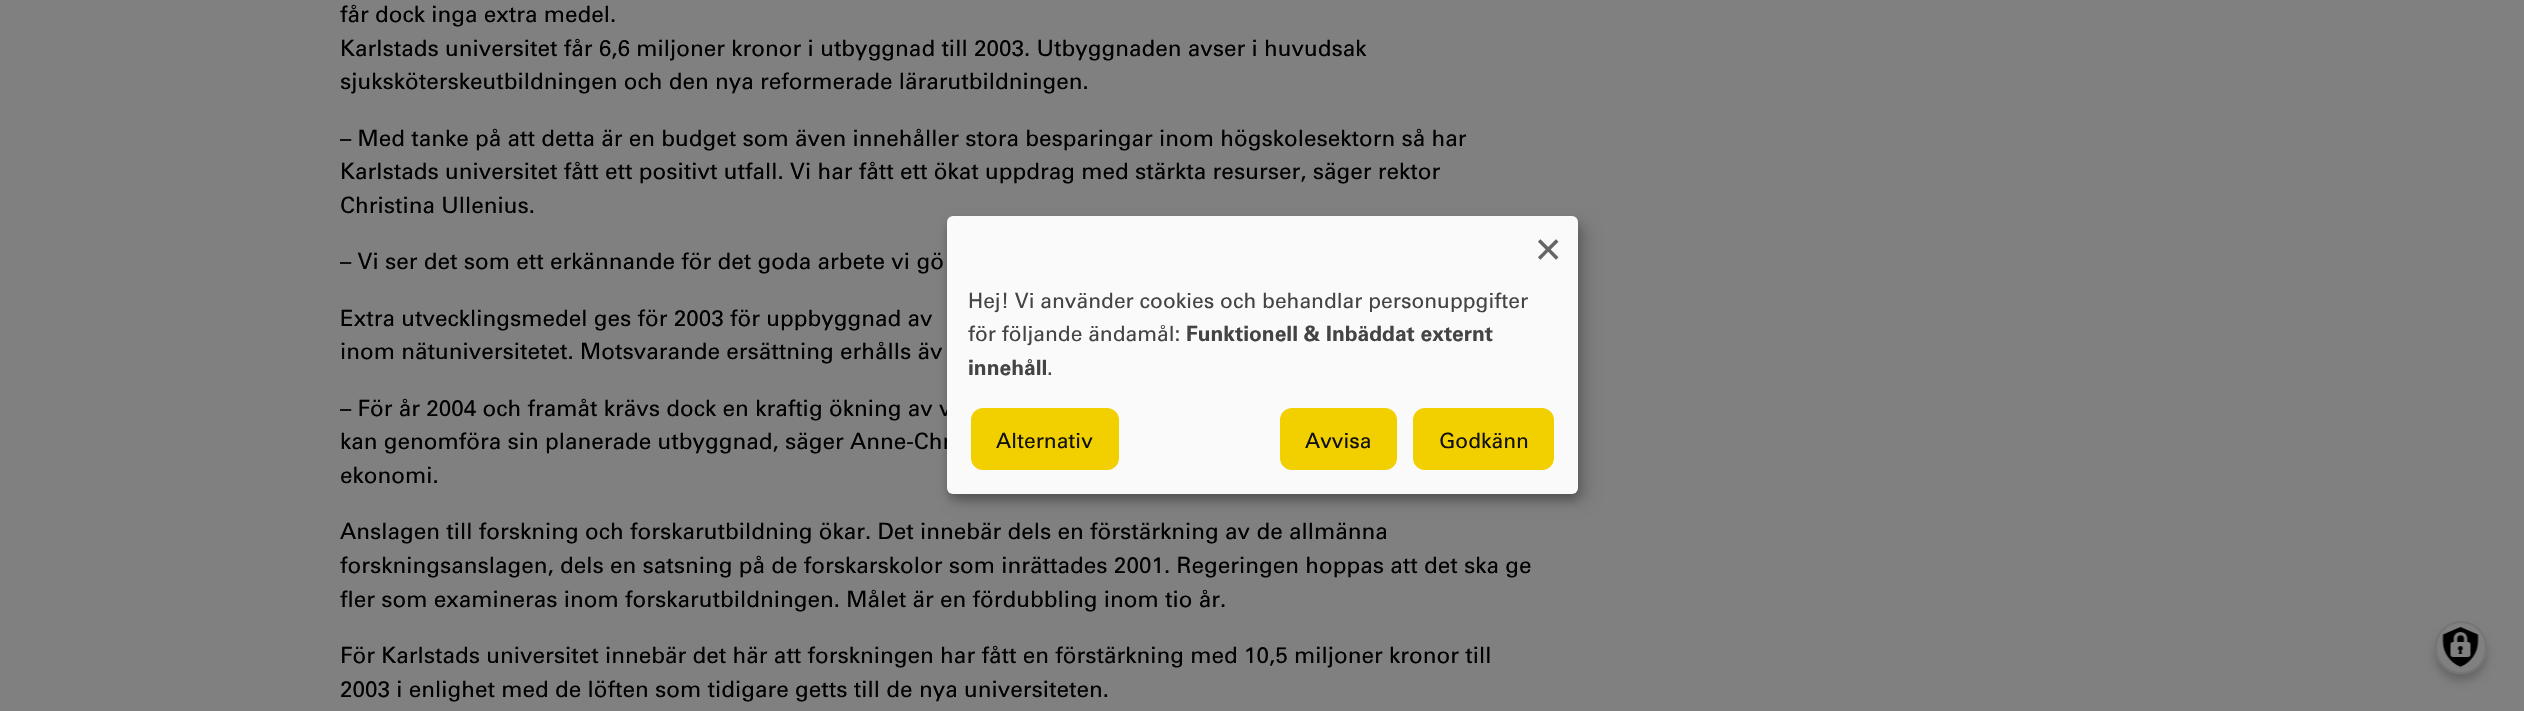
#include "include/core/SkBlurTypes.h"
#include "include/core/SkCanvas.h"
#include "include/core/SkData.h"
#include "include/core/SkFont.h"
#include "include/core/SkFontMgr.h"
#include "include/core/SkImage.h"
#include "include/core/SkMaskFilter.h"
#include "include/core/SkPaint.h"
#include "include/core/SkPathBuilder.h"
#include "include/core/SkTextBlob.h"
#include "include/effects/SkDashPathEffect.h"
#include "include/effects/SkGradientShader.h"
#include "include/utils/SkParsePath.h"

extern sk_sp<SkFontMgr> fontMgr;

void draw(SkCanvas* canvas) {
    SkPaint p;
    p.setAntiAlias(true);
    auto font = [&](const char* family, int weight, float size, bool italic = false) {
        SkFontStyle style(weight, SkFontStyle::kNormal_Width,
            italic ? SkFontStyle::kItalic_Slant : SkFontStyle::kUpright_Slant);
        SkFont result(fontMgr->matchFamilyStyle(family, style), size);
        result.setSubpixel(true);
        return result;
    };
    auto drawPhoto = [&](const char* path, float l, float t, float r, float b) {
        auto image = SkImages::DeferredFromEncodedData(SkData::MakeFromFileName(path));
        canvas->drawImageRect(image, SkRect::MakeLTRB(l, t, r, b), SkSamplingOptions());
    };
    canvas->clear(0xFF808080);
    auto font1 = font("Univers", 400, 22.5f);
    p.setColor(0xFF000000);
    {
        const struct { const char* s; float x, y; } items[] = {
            {"får dock inga extra medel.", 340, 22},
            {"Karlstads universitet får 6,6 miljoner kronor i utbyggnad till 2003. Utbyggnaden avser i huvudsak", 340, 56},
            {"sjuksköterskeutbildningen och den nya reformerade lärarutbildningen.", 340, 89},
            {"– Med tanke på att detta är en budget som även innehåller stora besparingar inom högskolesektorn så har", 340, 146},
            {"Karlstads universitet fått ett positivt utfall. Vi har fått ett ökat uppdrag med stärkta resurser, säger rektor", 340, 179},
            {"Christina Ullenius.", 340, 213},
            {"– Vi ser det som ett erkännande för det goda arbete vi gö", 340, 269},
            {"Extra utvecklingsmedel ges för 2003 för uppbyggnad av", 340, 326},
            {"inom nätuniversitetet. Motsvarande ersättning erhålls äv", 340, 359},
            {"– För år 2004 och framåt krävs dock en kraftig ökning av v", 340, 416},
            {"kan genomföra sin planerade utbyggnad, säger Anne-Chr", 340, 449},
            {"ekonomi.", 340, 483},
            {"Anslagen till forskning och forskarutbildning ökar. Det innebär dels en förstärkning av de allmänna", 340, 539},
            {"forskningsanslagen, dels en satsning på de forskarskolor som inrättades 2001. Regeringen hoppas att det ska ge", 340, 573},
            {"fler som examineras inom forskarutbildningen. Målet är en fördubbling inom tio år.", 340, 607},
            {"För Karlstads universitet innebär det här att forskningen har fått en förstärkning med 10,5 miljoner kronor till", 340, 663},
            {"2003 i enlighet med de löften som tidigare getts till de nya universiteten.", 340, 697},
        };
        for (auto [s, x, y] : items) {
            canvas->drawString(s, x, y, font1, p);
        }
    }
    p.setColor(0x30000000);
    p.setMaskFilter(SkMaskFilter::MakeBlur(kNormal_SkBlurStyle, 7.5f));
    canvas->drawRoundRect(SkRect::MakeLTRB(954, 224, 1586, 501), 6, 6, p);
    p.setMaskFilter(nullptr);
    p.setColor(0x33000000);
    p.setMaskFilter(SkMaskFilter::MakeBlur(kNormal_SkBlurStyle, 4.5f));
    canvas->drawRoundRect(SkRect::MakeLTRB(947, 222, 1578, 500), 6, 6, p);
    p.setMaskFilter(nullptr);
    p.setColor(0xFFFAFAFA);
    canvas->drawRoundRect(SkRect::MakeLTRB(947, 216, 1578, 494), 6, 6, p);
    auto font2 = font("Univers", 400, 42);
    p.setColor(0xFF666666);
    canvas->drawString("×", 1536, 260, font2, p);
    auto font3 = font("Univers", 400, 21);
    p.setColor(0xFF444444);
    canvas->drawString("Hej! Vi använder cookies och behandlar personuppgifter", 968, 308, font3, p);
    canvas->drawString("för följande ändamål:", 968, 341, font3, p);
    auto font4 = font("Univers", 700, 21);
    canvas->drawString("Funktionell & Inbäddat externt", 1186, 341, font4, p);
    canvas->drawString("innehåll", 968, 375, font4, p);
    canvas->drawString(".", 1047, 375, font3, p);
    p.setColor(0xFFF2D000);
    canvas->drawRoundRect(SkRect::MakeLTRB(969.5f, 406.5f, 1120.5f, 471.5f), 13.5f, 13.5f, p);
    p.setStyle(SkPaint::kStroke_Style);
    p.setStrokeWidth(3);
    p.setColor(0xFFFAFAFA);
    canvas->drawRoundRect(SkRect::MakeLTRB(969.5f, 406.5f, 1120.5f, 471.5f), 13.5f, 13.5f, p);
    p.setStyle(SkPaint::kFill_Style);
    p.setColor(0xFF111111);
    canvas->drawString("Alternativ", 996, 448, font3, p);
    p.setColor(0xFFF2D000);
    canvas->drawRoundRect(SkRect::MakeLTRB(1278.5f, 406.5f, 1398.5f, 471.5f), 13.5f, 13.5f, p);
    p.setStyle(SkPaint::kStroke_Style);
    p.setColor(0xFFFAFAFA);
    canvas->drawRoundRect(SkRect::MakeLTRB(1278.5f, 406.5f, 1398.5f, 471.5f), 13.5f, 13.5f, p);
    p.setStyle(SkPaint::kFill_Style);
    p.setColor(0xFF111111);
    canvas->drawString("Avvisa", 1305, 448, font3, p);
    p.setColor(0xFFF2D000);
    canvas->drawRoundRect(SkRect::MakeLTRB(1411.5f, 406.5f, 1555.5f, 471.5f), 13.5f, 13.5f, p);
    p.setStyle(SkPaint::kStroke_Style);
    p.setColor(0xFFFAFAFA);
    canvas->drawRoundRect(SkRect::MakeLTRB(1411.5f, 406.5f, 1555.5f, 471.5f), 13.5f, 13.5f, p);
    p.setStyle(SkPaint::kFill_Style);
    p.setColor(0xFF111111);
    canvas->drawString("Godkänn", 1439, 448, font3, p);
    p.setColor(0x33000000);
    p.setMaskFilter(SkMaskFilter::MakeBlur(kNormal_SkBlurStyle, 4));
    canvas->drawRoundRect(SkRect::MakeLTRB(2435, 629, 2487, 681), 26, 26, p);
    p.setMaskFilter(nullptr);
    p.setColor(0xFF808080);
    canvas->drawRoundRect(SkRect::MakeLTRB(2435, 621, 2487, 674), 26, 26, p);
    drawPhoto("media/1.png", 2442, 627, 2479, 667);
    p.setStyle(SkPaint::kStroke_Style);
    p.setStrokeWidth(2);
    p.setColor(0xFF757575);
    canvas->drawRoundRect(SkRect::MakeLTRB(2436, 622, 2486, 673), 25, 25, p);
}
